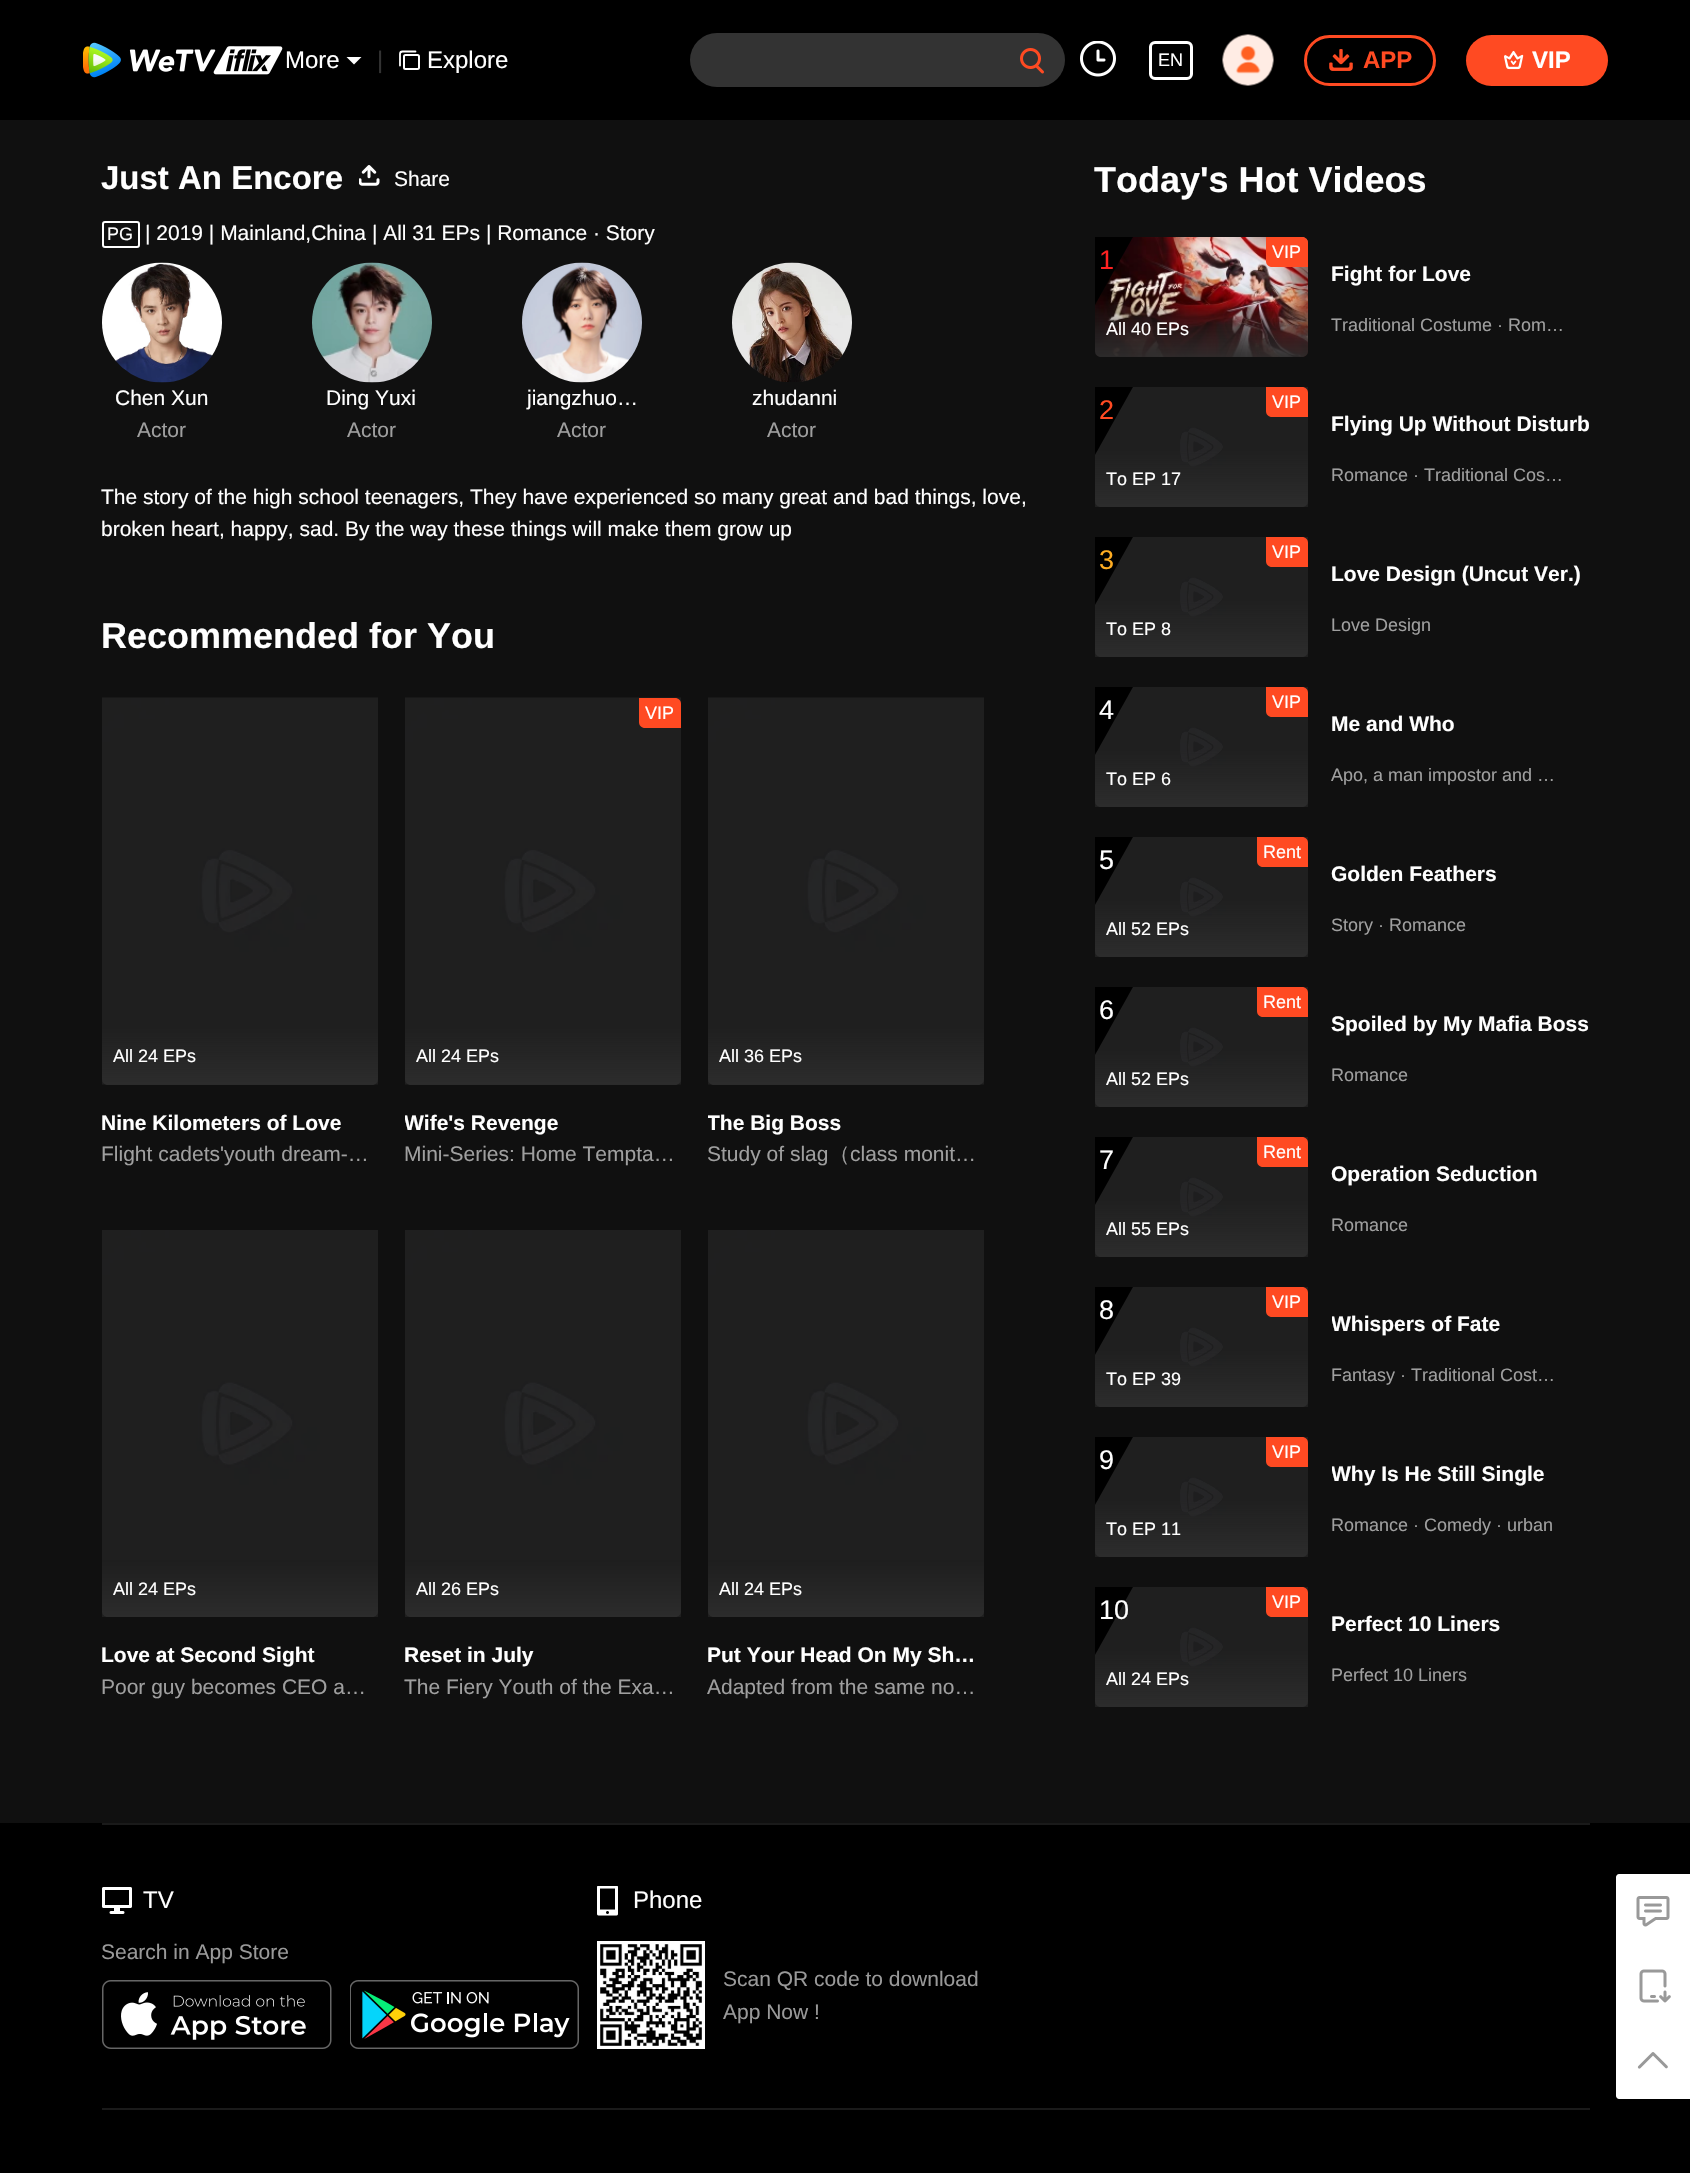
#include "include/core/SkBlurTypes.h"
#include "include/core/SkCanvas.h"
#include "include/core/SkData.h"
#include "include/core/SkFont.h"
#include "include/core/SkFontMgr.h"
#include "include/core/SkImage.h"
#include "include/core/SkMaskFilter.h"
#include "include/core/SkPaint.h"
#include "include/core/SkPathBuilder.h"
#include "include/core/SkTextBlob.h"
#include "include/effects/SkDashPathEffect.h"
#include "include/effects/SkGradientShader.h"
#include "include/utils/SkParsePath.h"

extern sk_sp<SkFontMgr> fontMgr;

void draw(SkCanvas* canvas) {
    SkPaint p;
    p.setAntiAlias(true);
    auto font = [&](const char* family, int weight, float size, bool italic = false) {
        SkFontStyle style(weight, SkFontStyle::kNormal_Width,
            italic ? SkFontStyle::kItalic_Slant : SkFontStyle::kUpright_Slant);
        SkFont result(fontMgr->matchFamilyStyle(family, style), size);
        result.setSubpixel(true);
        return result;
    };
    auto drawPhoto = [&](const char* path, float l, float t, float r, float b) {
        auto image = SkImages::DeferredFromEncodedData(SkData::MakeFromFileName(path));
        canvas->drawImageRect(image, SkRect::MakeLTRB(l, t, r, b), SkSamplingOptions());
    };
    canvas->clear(0xFF000000);
    drawPhoto("media/1.png", 83, 42, 283, 78);
    auto font1 = font("Liberation Sans", 400, 24);
    p.setColor(0xFFFFFFFF);
    canvas->drawString("More", 285, 68, font1, p);
    canvas->drawPath(SkPathBuilder().moveTo(346.5f, 57).lineTo(361.5f, 57).lineTo(354, 64.5f).close().detach(), p);
    p.setColor(0xFF333333);
    canvas->drawString("|", 377, 68, font1, p);
    p.setStyle(SkPaint::kStroke_Style);
    p.setStrokeWidth(2);
    p.setColor(0xFFFFFFFF);
    canvas->drawRoundRect(SkRect::MakeLTRB(404, 55, 419, 69), 1.5f, 1.5f, p);
    p.setStrokeWidth(1.8f);
    p.setStrokeCap(SkPaint::kRound_Cap);
    canvas->drawPath(SkPathBuilder().moveTo(415.5f, 51.5f).lineTo(402.5f, 51.5f).cubicTo(401, 51.5f, 400, 52.5f, 400, 54).lineTo(400, 65.5f).detach(), p);
    p.setStyle(SkPaint::kFill_Style);
    canvas->drawString("Explore", 427, 68, font1, p);
    p.setColor(0xFF333333);
    canvas->drawRoundRect(SkRect::MakeLTRB(690, 33, 1065, 87), 27, 27, p);
    drawPhoto("media/2.png", 1020, 48, 1044, 74);
    drawPhoto("media/3.png", 1080, 41, 1116, 77);
    p.setStyle(SkPaint::kStroke_Style);
    p.setStrokeWidth(3);
    p.setStrokeCap(SkPaint::kButt_Cap);
    p.setColor(0xFFFFFFFF);
    canvas->drawRoundRect(SkRect::MakeLTRB(1150.5f, 42.5f, 1191.5f, 78.5f), 4.5f, 4.5f, p);
    auto font2 = font("Liberation Sans", 400, 18);
    p.setStyle(SkPaint::kFill_Style);
    canvas->drawString("EN", 1158, 66, font2, p);
    drawPhoto("media/4.png", 1222, 34, 1274, 86);
    p.setStyle(SkPaint::kStroke_Style);
    p.setColor(0xFFFF4A22);
    canvas->drawRoundRect(SkRect::MakeLTRB(1305.5f, 36.5f, 1434.5f, 84.5f), 24, 24, p);
    drawPhoto("media/5.png", 1329, 49, 1353, 71);
    auto font3 = font("Liberation Sans", 700, 24);
    p.setStyle(SkPaint::kFill_Style);
    canvas->drawString("APP", 1363, 68, font3, p);
    canvas->drawRoundRect(SkRect::MakeLTRB(1466, 35, 1608, 86), 25.5f, 25.5f, p);
    drawPhoto("media/6.png", 1504, 50, 1524, 70);
    p.setColor(0xFFFFFFFF);
    canvas->drawString("VIP", 1532, 68, font3, p);
    p.setColor(0xFF101010);
    canvas->drawRect(SkRect::MakeLTRB(0, 120, 1690, 1823), p);
    auto font4 = font("Liberation Sans", 700, 33);
    p.setColor(0xFFFFFFFF);
    canvas->drawString("Just An Encore", 101, 189, font4, p);
    drawPhoto("media/7.png", 359, 165, 380, 186);
    auto font5 = font("Liberation Sans", 400, 21);
    canvas->drawString("Share", 394, 186, font5, p);
    p.setStyle(SkPaint::kStroke_Style);
    p.setStrokeWidth(2);
    canvas->drawRoundRect(SkRect::MakeLTRB(103, 222, 139, 247), 2, 2, p);
    p.setStyle(SkPaint::kFill_Style);
    canvas->drawString("PG", 107, 240, font2, p);
    canvas->drawString("| 2019 | Mainland,China | All 31 EPs | Romance · Story", 145, 240, font5, p);
    drawPhoto("media/8.png", 102, 262, 222, 383);
    canvas->drawString("Chen Xun", 115, 405, font5, p);
    p.setColor(0xFF9F9F9F);
    canvas->drawString("Actor", 137, 437, font5, p);
    drawPhoto("media/9.png", 312, 262, 432, 383);
    p.setColor(0xFFFFFFFF);
    canvas->drawString("Ding Yuxi", 326, 405, font5, p);
    p.setColor(0xFF9F9F9F);
    canvas->drawString("Actor", 347, 437, font5, p);
    drawPhoto("media/10.png", 522, 262, 642, 383);
    p.setColor(0xFFFFFFFF);
    canvas->drawString("jiangzhuo…", 527, 405, font5, p);
    p.setColor(0xFF9F9F9F);
    canvas->drawString("Actor", 557, 437, font5, p);
    drawPhoto("media/11.png", 732, 262, 852, 382);
    p.setColor(0xFFFFFFFF);
    canvas->drawString("zhudanni", 752, 405, font5, p);
    p.setColor(0xFF9F9F9F);
    canvas->drawString("Actor", 767, 437, font5, p);
    p.setColor(0xFFFFFFFF);
    canvas->drawString("The story of the high school teenagers, They have experienced so many great and bad things, love,", 101, 504, font5, p);
    canvas->drawString("broken heart, happy, sad. By the way these things will make them grow up", 101, 536, font5, p);
    auto font6 = font("Liberation Sans", 700, 36);
    canvas->drawString("Recommended for You", 101, 648, font6, p);
    drawPhoto("media/12.png", 102, 697, 378, 1085);
    {
        const SkColor colors[] = {0xE62D2D2D, 0x002D2D2D};
        const float stops[] = {0, 1};
        const SkPoint ends[] = {{240, 1085}, {240, 1028}};
        p.setShader(SkGradientShader::MakeLinear(ends, colors, stops, 2, SkTileMode::kClamp));
        p.setAlpha(255);
    }
    canvas->drawPath(SkPathBuilder().moveTo(102, 1028).lineTo(378, 1028).lineTo(378, 1079).cubicTo(378, 1082.5f, 375.5f, 1085, 372, 1085).lineTo(108, 1085).cubicTo(104.5f, 1085, 102, 1082.5f, 102, 1079).close().detach(), p);
    p.setShader(nullptr);
    p.setColor(0xFFFFFFFF);
    canvas->drawString("All 24 EPs", 113, 1062, font2, p);
    auto font7 = font("Liberation Sans", 700, 21);
    canvas->drawString("Nine Kilometers of Love", 101, 1130, font7, p);
    p.setColor(0xFF9F9F9F);
    canvas->drawString("Flight cadets'youth dream-…", 101, 1161, font5, p);
    drawPhoto("media/12.png", 405, 697, 681, 1085);
    p.setColor(0xFFFF4A22);
    canvas->drawPath(SkPathBuilder().moveTo(639, 698).lineTo(675, 698).cubicTo(678.5f, 698, 681, 700.5f, 681, 704).lineTo(681, 728).lineTo(645, 728).cubicTo(641.5f, 728, 639, 725.5f, 639, 722).close().detach(), p);
    p.setColor(0xFFFFFFFF);
    canvas->drawString("VIP", 645, 719, font2, p);
    {
        const SkColor colors[] = {0xE62D2D2D, 0x002D2D2D};
        const float stops[] = {0, 1};
        const SkPoint ends[] = {{543, 1085}, {543, 1028}};
        p.setShader(SkGradientShader::MakeLinear(ends, colors, stops, 2, SkTileMode::kClamp));
        p.setAlpha(255);
    }
    canvas->drawPath(SkPathBuilder().moveTo(405, 1028).lineTo(681, 1028).lineTo(681, 1079).cubicTo(681, 1082.5f, 678.5f, 1085, 675, 1085).lineTo(411, 1085).cubicTo(407.5f, 1085, 405, 1082.5f, 405, 1079).close().detach(), p);
    p.setShader(nullptr);
    p.setColor(0xFFFFFFFF);
    canvas->drawString("All 24 EPs", 416, 1062, font2, p);
    canvas->save();
    canvas->clipRect(SkRect::MakeLTRB(405, 1106, 681, 1139));
    canvas->drawString("Wife's Revenge", 404, 1130, font7, p);
    canvas->restore();
    p.setColor(0xFF9F9F9F);
    canvas->drawString("Mini-Series: Home Tempta…", 404, 1161, font5, p);
    drawPhoto("media/12.png", 708, 697, 984, 1085);
    {
        const SkColor colors[] = {0xE62D2D2D, 0x002D2D2D};
        const float stops[] = {0, 1};
        const SkPoint ends[] = {{846, 1085}, {846, 1028}};
        p.setShader(SkGradientShader::MakeLinear(ends, colors, stops, 2, SkTileMode::kClamp));
        p.setAlpha(255);
    }
    canvas->drawPath(SkPathBuilder().moveTo(708, 1028).lineTo(984, 1028).lineTo(984, 1079).cubicTo(984, 1082.5f, 981.5f, 1085, 978, 1085).lineTo(714, 1085).cubicTo(710.5f, 1085, 708, 1082.5f, 708, 1079).close().detach(), p);
    p.setShader(nullptr);
    p.setColor(0xFFFFFFFF);
    canvas->drawString("All 36 EPs", 719, 1062, font2, p);
    canvas->save();
    canvas->clipRect(SkRect::MakeLTRB(708, 1106, 984, 1139));
    canvas->drawString("The Big Boss", 707, 1130, font7, p);
    canvas->restore();
    p.setColor(0xFF9F9F9F);
    canvas->drawString("Study of slag", 707, 1161, font5, p);
    auto font8 = font("WenQuanYi Zen Hei", 500, 21);
    canvas->drawString("（", 829, 1161, font8, p);
    canvas->drawString("class monit…", 850, 1161, font5, p);
    drawPhoto("media/13.png", 102, 1230, 378, 1617);
    {
        const SkColor colors[] = {0xFF2C2C2C, 0xFF1E1E1E};
        const float stops[] = {0, 1};
        const SkPoint ends[] = {{240, 1617}, {240, 1560}};
        p.setShader(SkGradientShader::MakeLinear(ends, colors, stops, 2, SkTileMode::kClamp));
        p.setAlpha(255);
    }
    canvas->drawPath(SkPathBuilder().moveTo(102, 1560).lineTo(378, 1560).lineTo(378, 1611).cubicTo(378, 1614.5f, 375.5f, 1617, 372, 1617).lineTo(108, 1617).cubicTo(104.5f, 1617, 102, 1614.5f, 102, 1611).close().detach(), p);
    p.setShader(nullptr);
    p.setColor(0xFFFFFFFF);
    canvas->drawString("All 24 EPs", 113, 1595, font2, p);
    canvas->drawString("Love at Second Sight", 101, 1662, font7, p);
    p.setColor(0xFF9F9F9F);
    canvas->drawString("Poor guy becomes CEO a…", 101, 1694, font5, p);
    drawPhoto("media/13.png", 405, 1230, 681, 1617);
    {
        const SkColor colors[] = {0xFF2C2C2C, 0xFF1E1E1E};
        const float stops[] = {0, 1};
        const SkPoint ends[] = {{543, 1617}, {543, 1560}};
        p.setShader(SkGradientShader::MakeLinear(ends, colors, stops, 2, SkTileMode::kClamp));
        p.setAlpha(255);
    }
    canvas->drawPath(SkPathBuilder().moveTo(405, 1560).lineTo(681, 1560).lineTo(681, 1611).cubicTo(681, 1614.5f, 678.5f, 1617, 675, 1617).lineTo(411, 1617).cubicTo(407.5f, 1617, 405, 1614.5f, 405, 1611).close().detach(), p);
    p.setShader(nullptr);
    p.setColor(0xFFFFFFFF);
    canvas->drawString("All 26 EPs", 416, 1595, font2, p);
    canvas->drawString("Reset in July", 404, 1662, font7, p);
    p.setColor(0xFF9F9F9F);
    canvas->drawString("The Fiery Youth of the Exa…", 404, 1694, font5, p);
    drawPhoto("media/13.png", 708, 1230, 984, 1617);
    {
        const SkColor colors[] = {0xFF2C2C2C, 0xFF1E1E1E};
        const float stops[] = {0, 1};
        const SkPoint ends[] = {{846, 1617}, {846, 1560}};
        p.setShader(SkGradientShader::MakeLinear(ends, colors, stops, 2, SkTileMode::kClamp));
        p.setAlpha(255);
    }
    canvas->drawPath(SkPathBuilder().moveTo(708, 1560).lineTo(984, 1560).lineTo(984, 1611).cubicTo(984, 1614.5f, 981.5f, 1617, 978, 1617).lineTo(714, 1617).cubicTo(710.5f, 1617, 708, 1614.5f, 708, 1611).close().detach(), p);
    p.setShader(nullptr);
    p.setColor(0xFFFFFFFF);
    canvas->drawString("All 24 EPs", 719, 1595, font2, p);
    canvas->drawString("Put Your Head On My Sh…", 707, 1662, font7, p);
    p.setColor(0xFF9F9F9F);
    canvas->drawString("Adapted from the same no…", 707, 1694, font5, p);
    p.setColor(0xFFFFFFFF);
    canvas->drawString("Today's Hot Videos", 1094, 192, font6, p);
    drawPhoto("media/14.png", 1095, 237, 1308, 357);
    p.setColor(0xFFFF4A22);
    canvas->drawPath(SkPathBuilder().moveTo(1266, 237).lineTo(1302, 237).cubicTo(1305.5f, 237, 1308, 239.5f, 1308, 243).lineTo(1308, 267).lineTo(1272, 267).cubicTo(1268.5f, 267, 1266, 264.5f, 1266, 261).close().detach(), p);
    p.setColor(0xFFFFFFFF);
    canvas->drawString("VIP", 1272, 258, font2, p);
    p.setColor(0xFF000000);
    canvas->drawPath(SkPathBuilder().moveTo(1095, 305).lineTo(1095, 237).lineTo(1133, 237).close().detach(), p);
    {
        const SkColor colors[] = {0xE62D2D2D, 0x002D2D2D};
        const float stops[] = {0, 1};
        const SkPoint ends[] = {{1202, 357}, {1202, 300}};
        p.setShader(SkGradientShader::MakeLinear(ends, colors, stops, 2, SkTileMode::kClamp));
        p.setAlpha(255);
    }
    canvas->drawPath(SkPathBuilder().moveTo(1095, 300).lineTo(1308, 300).lineTo(1308, 351).cubicTo(1308, 354.5f, 1305.5f, 357, 1302, 357).lineTo(1101, 357).cubicTo(1097.5f, 357, 1095, 354.5f, 1095, 351).close().detach(), p);
    p.setShader(nullptr);
    p.setColor(0xFFFFFFFF);
    canvas->drawString("All 40 EPs", 1106, 335, font2, p);
    auto font9 = font("Liberation Sans", 400, 27);
    p.setColor(0xFFFF2222);
    canvas->drawString("1", 1099, 269, font9, p);
    p.setColor(0xFFFFFFFF);
    canvas->drawString("Fight for Love", 1331, 281, font7, p);
    p.setColor(0xFF9F9F9F);
    canvas->drawString("Traditional Costume · Rom…", 1331, 331, font2, p);
    drawPhoto("media/15.png", 1095, 387, 1308, 507);
    p.setColor(0xFFFF4A22);
    canvas->drawPath(SkPathBuilder().moveTo(1266, 387).lineTo(1302, 387).cubicTo(1305.5f, 387, 1308, 389.5f, 1308, 393).lineTo(1308, 417).lineTo(1272, 417).cubicTo(1268.5f, 417, 1266, 414.5f, 1266, 411).close().detach(), p);
    p.setColor(0xFFFFFFFF);
    canvas->drawString("VIP", 1272, 408, font2, p);
    p.setColor(0xFF000000);
    canvas->drawPath(SkPathBuilder().moveTo(1095, 455).lineTo(1095, 387).lineTo(1133, 387).close().detach(), p);
    {
        const SkColor colors[] = {0xE62D2D2D, 0x002D2D2D};
        const float stops[] = {0, 1};
        const SkPoint ends[] = {{1202, 507}, {1202, 450}};
        p.setShader(SkGradientShader::MakeLinear(ends, colors, stops, 2, SkTileMode::kClamp));
        p.setAlpha(255);
    }
    canvas->drawPath(SkPathBuilder().moveTo(1095, 450).lineTo(1308, 450).lineTo(1308, 501).cubicTo(1308, 504.5f, 1305.5f, 507, 1302, 507).lineTo(1101, 507).cubicTo(1097.5f, 507, 1095, 504.5f, 1095, 501).close().detach(), p);
    p.setShader(nullptr);
    p.setColor(0xFFFFFFFF);
    canvas->drawString("To EP 17", 1106, 485, font2, p);
    p.setColor(0xFFFF4A22);
    canvas->drawString("2", 1099, 419, font9, p);
    p.setColor(0xFFFFFFFF);
    canvas->drawString("Flying Up Without Disturb", 1331, 431, font7, p);
    p.setColor(0xFF9F9F9F);
    canvas->drawString("Romance · Traditional Cos…", 1331, 481, font2, p);
    drawPhoto("media/15.png", 1095, 537, 1308, 657);
    p.setColor(0xFFFF4A22);
    canvas->drawPath(SkPathBuilder().moveTo(1266, 537).lineTo(1302, 537).cubicTo(1305.5f, 537, 1308, 539.5f, 1308, 543).lineTo(1308, 567).lineTo(1272, 567).cubicTo(1268.5f, 567, 1266, 564.5f, 1266, 561).close().detach(), p);
    p.setColor(0xFFFFFFFF);
    canvas->drawString("VIP", 1272, 558, font2, p);
    p.setColor(0xFF000000);
    canvas->drawPath(SkPathBuilder().moveTo(1095, 605).lineTo(1095, 537).lineTo(1133, 537).close().detach(), p);
    {
        const SkColor colors[] = {0xE62D2D2D, 0x002D2D2D};
        const float stops[] = {0, 1};
        const SkPoint ends[] = {{1202, 657}, {1202, 600}};
        p.setShader(SkGradientShader::MakeLinear(ends, colors, stops, 2, SkTileMode::kClamp));
        p.setAlpha(255);
    }
    canvas->drawPath(SkPathBuilder().moveTo(1095, 600).lineTo(1308, 600).lineTo(1308, 651).cubicTo(1308, 654.5f, 1305.5f, 657, 1302, 657).lineTo(1101, 657).cubicTo(1097.5f, 657, 1095, 654.5f, 1095, 651).close().detach(), p);
    p.setShader(nullptr);
    p.setColor(0xFFFFFFFF);
    canvas->drawString("To EP 8", 1106, 635, font2, p);
    p.setColor(0xFFFFAD22);
    canvas->drawString("3", 1099, 569, font9, p);
    p.setColor(0xFFFFFFFF);
    canvas->drawString("Love Design (Uncut Ver.)", 1331, 581, font7, p);
    p.setColor(0xFF9F9F9F);
    canvas->drawString("Love Design", 1331, 631, font2, p);
    drawPhoto("media/15.png", 1095, 687, 1308, 807);
    p.setColor(0xFFFF4A22);
    canvas->drawPath(SkPathBuilder().moveTo(1266, 687).lineTo(1302, 687).cubicTo(1305.5f, 687, 1308, 689.5f, 1308, 693).lineTo(1308, 717).lineTo(1272, 717).cubicTo(1268.5f, 717, 1266, 714.5f, 1266, 711).close().detach(), p);
    p.setColor(0xFFFFFFFF);
    canvas->drawString("VIP", 1272, 708, font2, p);
    p.setColor(0xFF000000);
    canvas->drawPath(SkPathBuilder().moveTo(1095, 755).lineTo(1095, 687).lineTo(1133, 687).close().detach(), p);
    {
        const SkColor colors[] = {0xE62D2D2D, 0x002D2D2D};
        const float stops[] = {0, 1};
        const SkPoint ends[] = {{1202, 807}, {1202, 750}};
        p.setShader(SkGradientShader::MakeLinear(ends, colors, stops, 2, SkTileMode::kClamp));
        p.setAlpha(255);
    }
    canvas->drawPath(SkPathBuilder().moveTo(1095, 750).lineTo(1308, 750).lineTo(1308, 801).cubicTo(1308, 804.5f, 1305.5f, 807, 1302, 807).lineTo(1101, 807).cubicTo(1097.5f, 807, 1095, 804.5f, 1095, 801).close().detach(), p);
    p.setShader(nullptr);
    p.setColor(0xFFFFFFFF);
    canvas->drawString("To EP 6", 1106, 785, font2, p);
    canvas->drawString("4", 1099, 719, font9, p);
    canvas->drawString("Me and Who", 1331, 731, font7, p);
    p.setColor(0xFF9F9F9F);
    canvas->drawString("Apo, a man impostor and …", 1331, 781, font2, p);
    drawPhoto("media/15.png", 1095, 837, 1308, 957);
    p.setColor(0xFFFF4A22);
    canvas->drawPath(SkPathBuilder().moveTo(1257, 837).lineTo(1302, 837).cubicTo(1305.5f, 837, 1308, 839.5f, 1308, 843).lineTo(1308, 867).lineTo(1263, 867).cubicTo(1259.5f, 867, 1257, 864.5f, 1257, 861).close().detach(), p);
    p.setColor(0xFFFFFFFF);
    canvas->drawString("Rent", 1263, 858, font2, p);
    p.setColor(0xFF000000);
    canvas->drawPath(SkPathBuilder().moveTo(1095, 905).lineTo(1095, 837).lineTo(1133, 837).close().detach(), p);
    {
        const SkColor colors[] = {0xE62D2D2D, 0x002D2D2D};
        const float stops[] = {0, 1};
        const SkPoint ends[] = {{1202, 957}, {1202, 900}};
        p.setShader(SkGradientShader::MakeLinear(ends, colors, stops, 2, SkTileMode::kClamp));
        p.setAlpha(255);
    }
    canvas->drawPath(SkPathBuilder().moveTo(1095, 900).lineTo(1308, 900).lineTo(1308, 951).cubicTo(1308, 954.5f, 1305.5f, 957, 1302, 957).lineTo(1101, 957).cubicTo(1097.5f, 957, 1095, 954.5f, 1095, 951).close().detach(), p);
    p.setShader(nullptr);
    p.setColor(0xFFFFFFFF);
    canvas->drawString("All 52 EPs", 1106, 935, font2, p);
    canvas->drawString("5", 1099, 869, font9, p);
    canvas->drawString("Golden Feathers", 1331, 881, font7, p);
    p.setColor(0xFF9F9F9F);
    canvas->drawString("Story · Romance", 1331, 931, font2, p);
    drawPhoto("media/15.png", 1095, 987, 1308, 1107);
    p.setColor(0xFFFF4A22);
    canvas->drawPath(SkPathBuilder().moveTo(1257, 987).lineTo(1302, 987).cubicTo(1305.5f, 987, 1308, 989.5f, 1308, 993).lineTo(1308, 1017).lineTo(1263, 1017).cubicTo(1259.5f, 1017, 1257, 1014.5f, 1257, 1011).close().detach(), p);
    p.setColor(0xFFFFFFFF);
    canvas->drawString("Rent", 1263, 1008, font2, p);
    p.setColor(0xFF000000);
    canvas->drawPath(SkPathBuilder().moveTo(1095, 1055).lineTo(1095, 987).lineTo(1133, 987).close().detach(), p);
    {
        const SkColor colors[] = {0xE62D2D2D, 0x002D2D2D};
        const float stops[] = {0, 1};
        const SkPoint ends[] = {{1202, 1107}, {1202, 1050}};
        p.setShader(SkGradientShader::MakeLinear(ends, colors, stops, 2, SkTileMode::kClamp));
        p.setAlpha(255);
    }
    canvas->drawPath(SkPathBuilder().moveTo(1095, 1050).lineTo(1308, 1050).lineTo(1308, 1101).cubicTo(1308, 1104.5f, 1305.5f, 1107, 1302, 1107).lineTo(1101, 1107).cubicTo(1097.5f, 1107, 1095, 1104.5f, 1095, 1101).close().detach(), p);
    p.setShader(nullptr);
    p.setColor(0xFFFFFFFF);
    canvas->drawString("All 52 EPs", 1106, 1085, font2, p);
    canvas->drawString("6", 1099, 1019, font9, p);
    canvas->drawString("Spoiled by My Mafia Boss", 1331, 1031, font7, p);
    p.setColor(0xFF9F9F9F);
    canvas->drawString("Romance", 1331, 1081, font2, p);
    drawPhoto("media/15.png", 1095, 1137, 1308, 1257);
    p.setColor(0xFFFF4A22);
    canvas->drawPath(SkPathBuilder().moveTo(1257, 1137).lineTo(1302, 1137).cubicTo(1305.5f, 1137, 1308, 1139.5f, 1308, 1143).lineTo(1308, 1167).lineTo(1263, 1167).cubicTo(1259.5f, 1167, 1257, 1164.5f, 1257, 1161).close().detach(), p);
    p.setColor(0xFFFFFFFF);
    canvas->drawString("Rent", 1263, 1158, font2, p);
    p.setColor(0xFF000000);
    canvas->drawPath(SkPathBuilder().moveTo(1095, 1205).lineTo(1095, 1137).lineTo(1133, 1137).close().detach(), p);
    {
        const SkColor colors[] = {0xE62D2D2D, 0x002D2D2D};
        const float stops[] = {0, 1};
        const SkPoint ends[] = {{1202, 1257}, {1202, 1200}};
        p.setShader(SkGradientShader::MakeLinear(ends, colors, stops, 2, SkTileMode::kClamp));
        p.setAlpha(255);
    }
    canvas->drawPath(SkPathBuilder().moveTo(1095, 1200).lineTo(1308, 1200).lineTo(1308, 1251).cubicTo(1308, 1254.5f, 1305.5f, 1257, 1302, 1257).lineTo(1101, 1257).cubicTo(1097.5f, 1257, 1095, 1254.5f, 1095, 1251).close().detach(), p);
    p.setShader(nullptr);
    p.setColor(0xFFFFFFFF);
    canvas->drawString("All 55 EPs", 1106, 1235, font2, p);
    canvas->drawString("7", 1099, 1169, font9, p);
    canvas->drawString("Operation Seduction", 1331, 1181, font7, p);
    p.setColor(0xFF9F9F9F);
    canvas->drawString("Romance", 1331, 1231, font2, p);
    drawPhoto("media/15.png", 1095, 1287, 1308, 1407);
    p.setColor(0xFFFF4A22);
    canvas->drawPath(SkPathBuilder().moveTo(1266, 1287).lineTo(1302, 1287).cubicTo(1305.5f, 1287, 1308, 1289.5f, 1308, 1293).lineTo(1308, 1317).lineTo(1272, 1317).cubicTo(1268.5f, 1317, 1266, 1314.5f, 1266, 1311).close().detach(), p);
    p.setColor(0xFFFFFFFF);
    canvas->drawString("VIP", 1272, 1308, font2, p);
    p.setColor(0xFF000000);
    canvas->drawPath(SkPathBuilder().moveTo(1095, 1355).lineTo(1095, 1287).lineTo(1133, 1287).close().detach(), p);
    {
        const SkColor colors[] = {0xE62D2D2D, 0x002D2D2D};
        const float stops[] = {0, 1};
        const SkPoint ends[] = {{1202, 1407}, {1202, 1350}};
        p.setShader(SkGradientShader::MakeLinear(ends, colors, stops, 2, SkTileMode::kClamp));
        p.setAlpha(255);
    }
    canvas->drawPath(SkPathBuilder().moveTo(1095, 1350).lineTo(1308, 1350).lineTo(1308, 1401).cubicTo(1308, 1404.5f, 1305.5f, 1407, 1302, 1407).lineTo(1101, 1407).cubicTo(1097.5f, 1407, 1095, 1404.5f, 1095, 1401).close().detach(), p);
    p.setShader(nullptr);
    p.setColor(0xFFFFFFFF);
    canvas->drawString("To EP 39", 1106, 1385, font2, p);
    canvas->drawString("8", 1099, 1319, font9, p);
    canvas->save();
    canvas->clipRect(SkRect::MakeLTRB(1332, 1308, 1590, 1340));
    canvas->drawString("Whispers of Fate", 1331, 1331, font7, p);
    canvas->restore();
    p.setColor(0xFF9F9F9F);
    canvas->drawString("Fantasy · Traditional Cost…", 1331, 1381, font2, p);
    drawPhoto("media/15.png", 1095, 1437, 1308, 1557);
    p.setColor(0xFFFF4A22);
    canvas->drawPath(SkPathBuilder().moveTo(1266, 1437).lineTo(1302, 1437).cubicTo(1305.5f, 1437, 1308, 1439.5f, 1308, 1443).lineTo(1308, 1467).lineTo(1272, 1467).cubicTo(1268.5f, 1467, 1266, 1464.5f, 1266, 1461).close().detach(), p);
    p.setColor(0xFFFFFFFF);
    canvas->drawString("VIP", 1272, 1458, font2, p);
    p.setColor(0xFF000000);
    canvas->drawPath(SkPathBuilder().moveTo(1095, 1505).lineTo(1095, 1437).lineTo(1133, 1437).close().detach(), p);
    {
        const SkColor colors[] = {0xE62D2D2D, 0x002D2D2D};
        const float stops[] = {0, 1};
        const SkPoint ends[] = {{1202, 1557}, {1202, 1500}};
        p.setShader(SkGradientShader::MakeLinear(ends, colors, stops, 2, SkTileMode::kClamp));
        p.setAlpha(255);
    }
    canvas->drawPath(SkPathBuilder().moveTo(1095, 1500).lineTo(1308, 1500).lineTo(1308, 1551).cubicTo(1308, 1554.5f, 1305.5f, 1557, 1302, 1557).lineTo(1101, 1557).cubicTo(1097.5f, 1557, 1095, 1554.5f, 1095, 1551).close().detach(), p);
    p.setShader(nullptr);
    p.setColor(0xFFFFFFFF);
    canvas->drawString("To EP 11", 1106, 1535, font2, p);
    canvas->drawString("9", 1099, 1469, font9, p);
    canvas->save();
    canvas->clipRect(SkRect::MakeLTRB(1332, 1458, 1590, 1490));
    canvas->drawString("Why Is He Still Single", 1331, 1481, font7, p);
    canvas->restore();
    p.setColor(0xFF9F9F9F);
    canvas->drawString("Romance · Comedy · urban", 1331, 1531, font2, p);
    drawPhoto("media/15.png", 1095, 1587, 1308, 1707);
    p.setColor(0xFFFF4A22);
    canvas->drawPath(SkPathBuilder().moveTo(1266, 1587).lineTo(1302, 1587).cubicTo(1305.5f, 1587, 1308, 1589.5f, 1308, 1593).lineTo(1308, 1617).lineTo(1272, 1617).cubicTo(1268.5f, 1617, 1266, 1614.5f, 1266, 1611).close().detach(), p);
    p.setColor(0xFFFFFFFF);
    canvas->drawString("VIP", 1272, 1608, font2, p);
    p.setColor(0xFF000000);
    canvas->drawPath(SkPathBuilder().moveTo(1095, 1655).lineTo(1095, 1587).lineTo(1133, 1587).close().detach(), p);
    {
        const SkColor colors[] = {0xE62D2D2D, 0x002D2D2D};
        const float stops[] = {0, 1};
        const SkPoint ends[] = {{1202, 1707}, {1202, 1650}};
        p.setShader(SkGradientShader::MakeLinear(ends, colors, stops, 2, SkTileMode::kClamp));
        p.setAlpha(255);
    }
    canvas->drawPath(SkPathBuilder().moveTo(1095, 1650).lineTo(1308, 1650).lineTo(1308, 1701).cubicTo(1308, 1704.5f, 1305.5f, 1707, 1302, 1707).lineTo(1101, 1707).cubicTo(1097.5f, 1707, 1095, 1704.5f, 1095, 1701).close().detach(), p);
    p.setShader(nullptr);
    p.setColor(0xFFFFFFFF);
    canvas->drawString("All 24 EPs", 1106, 1685, font2, p);
    canvas->drawString("10", 1099, 1619, font9, p);
    canvas->drawString("Perfect 10 Liners", 1331, 1631, font7, p);
    p.setColor(0xFF9F9F9F);
    canvas->drawString("Perfect 10 Liners", 1331, 1681, font2, p);
    p.setColor(0xFF1A1A1A);
    canvas->drawRect(SkRect::MakeLTRB(102, 1823, 1590, 1825), p);
    drawPhoto("media/16.png", 102, 1887, 132, 1914);
    p.setColor(0xFFFFFFFF);
    canvas->drawString("TV", 143, 1908, font1, p);
    p.setColor(0xFF999999);
    canvas->drawString("Search in App Store", 101, 1959, font5, p);
    drawPhoto("media/17.png", 102, 1980, 332, 2049);
    drawPhoto("media/18.png", 350, 1980, 579, 2049);
    drawPhoto("media/19.png", 597, 1886, 618, 1916);
    p.setColor(0xFFFFFFFF);
    canvas->drawString("Phone", 633, 1908, font1, p);
    drawPhoto("media/20.png", 597, 1941, 705, 2049);
    p.setColor(0xFF999999);
    canvas->drawString("Scan QR code to download", 723, 1986, font5, p);
    canvas->drawString("App Now !", 723, 2019, font5, p);
    p.setColor(0xFF1A1A1A);
    canvas->drawRect(SkRect::MakeLTRB(102, 2108, 1590, 2110), p);
    p.setColor(0xFFFFFFFF);
    canvas->drawPath(SkPathBuilder().moveTo(1619, 1874).lineTo(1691, 1874).lineTo(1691, 2099).lineTo(1619, 2099).cubicTo(1617.5f, 2099, 1616, 2097.5f, 1616, 2096).lineTo(1616, 1877).cubicTo(1616, 1875.5f, 1617.5f, 1874, 1619, 1874).close().detach(), p);
    drawPhoto("media/21.png", 1636, 1896, 1670, 1927);
    drawPhoto("media/22.png", 1639, 1969, 1671, 2003);
    drawPhoto("media/23.png", 1637, 2052, 1668, 2069);
}
